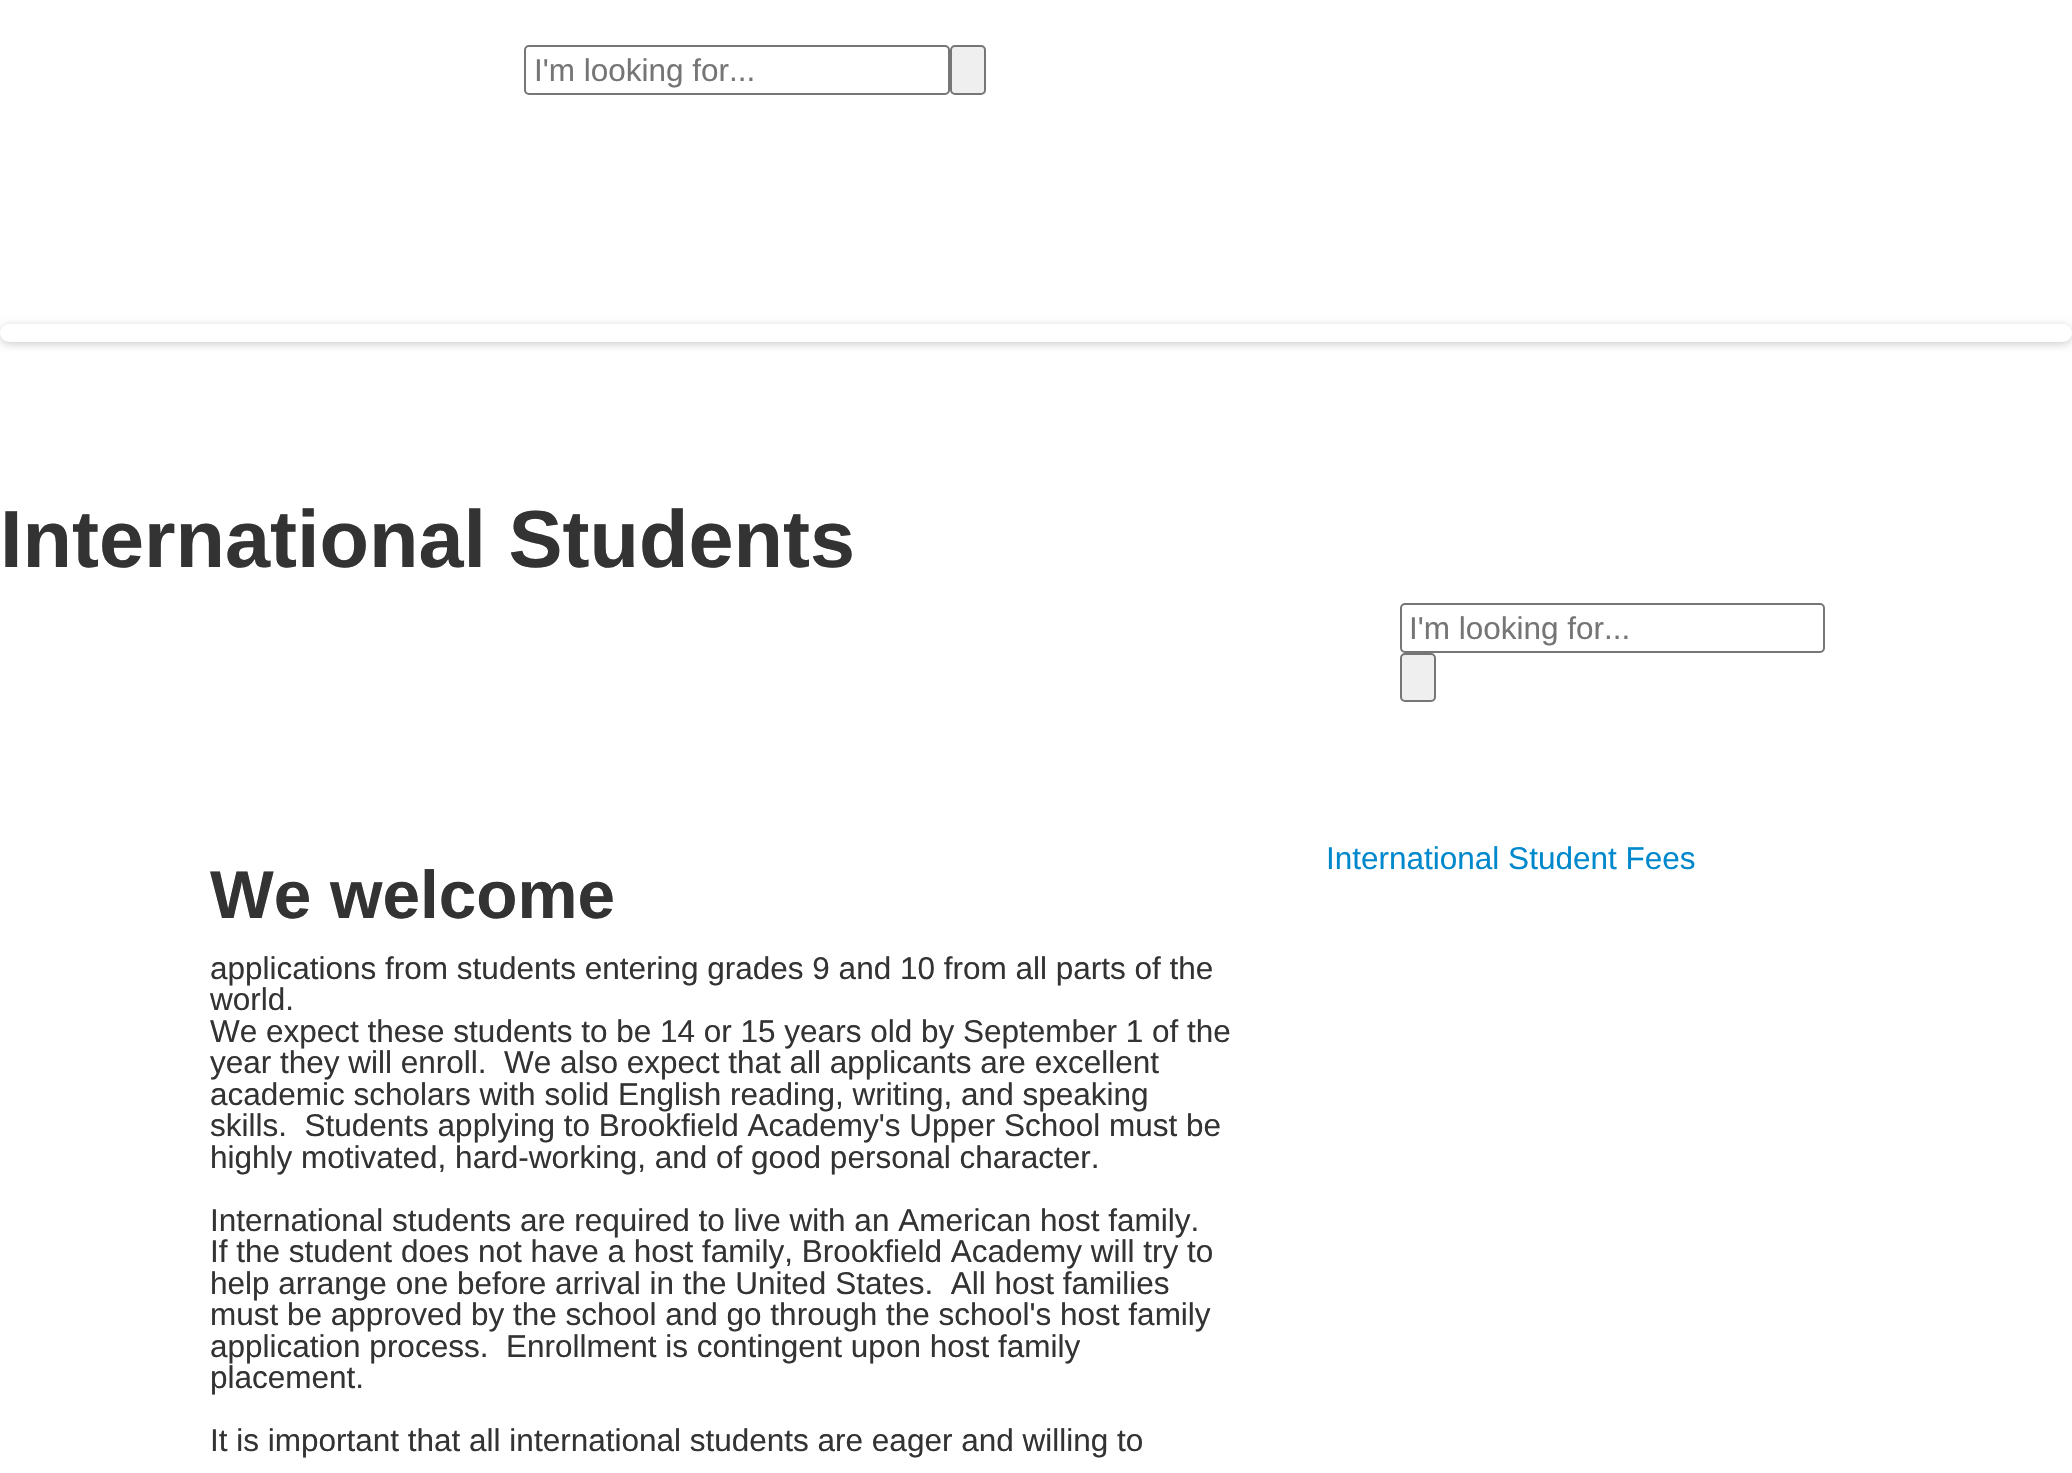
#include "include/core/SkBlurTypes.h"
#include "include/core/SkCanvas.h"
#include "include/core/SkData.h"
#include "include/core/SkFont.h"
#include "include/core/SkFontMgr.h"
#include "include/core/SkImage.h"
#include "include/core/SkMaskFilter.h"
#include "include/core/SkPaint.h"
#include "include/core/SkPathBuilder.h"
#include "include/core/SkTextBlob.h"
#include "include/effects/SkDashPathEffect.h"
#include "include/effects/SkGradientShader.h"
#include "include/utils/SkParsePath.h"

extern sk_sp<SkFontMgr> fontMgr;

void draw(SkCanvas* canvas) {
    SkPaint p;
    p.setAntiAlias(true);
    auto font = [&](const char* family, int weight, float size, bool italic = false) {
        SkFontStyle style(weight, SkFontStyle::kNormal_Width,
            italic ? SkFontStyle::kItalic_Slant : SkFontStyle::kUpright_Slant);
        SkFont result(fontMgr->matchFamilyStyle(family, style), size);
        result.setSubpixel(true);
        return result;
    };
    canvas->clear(0xFFFFFFFF);
    p.setStyle(SkPaint::kStroke_Style);
    p.setStrokeWidth(2);
    p.setColor(0xFF767676);
    canvas->drawRoundRect(SkRect::MakeLTRB(525, 46, 949, 94), 4, 4, p);
    auto font1 = font("Liberation Sans", 400, 31.5f);
    p.setStyle(SkPaint::kFill_Style);
    p.setColor(0xFF757575);
    canvas->drawString("I'm looking for...", 534, 81, font1, p);
    p.setColor(0xFFEFEFEF);
    canvas->drawRoundRect(SkRect::MakeLTRB(951, 46, 985, 94), 4, 4, p);
    p.setStyle(SkPaint::kStroke_Style);
    p.setColor(0xFF767676);
    canvas->drawRoundRect(SkRect::MakeLTRB(951, 46, 985, 94), 4, 4, p);
    p.setStyle(SkPaint::kFill_Style);
    p.setColor(0x33000000);
    p.setMaskFilter(SkMaskFilter::MakeBlur(kNormal_SkBlurStyle, 4.5f));
    canvas->drawRoundRect(SkRect::MakeLTRB(0, 326, 2072, 344), 9, 9, p);
    p.setMaskFilter(nullptr);
    p.setColor(0xFFFFFFFF);
    canvas->drawRoundRect(SkRect::MakeLTRB(0, 324, 2072, 342), 9, 9, p);
    auto font2 = font("Liberation Sans", 700, 81);
    p.setColor(0xFF333333);
    canvas->drawString("International Students", 0, 567, font2, p);
    p.setStyle(SkPaint::kStroke_Style);
    p.setColor(0xFF767676);
    canvas->drawRoundRect(SkRect::MakeLTRB(1401, 604, 1824, 652), 4, 4, p);
    p.setStyle(SkPaint::kFill_Style);
    p.setColor(0xFF757575);
    canvas->drawString("I'm looking for...", 1409, 639, font1, p);
    p.setColor(0xFFEFEFEF);
    canvas->drawRoundRect(SkRect::MakeLTRB(1401, 654, 1435, 701), 4, 4, p);
    p.setStyle(SkPaint::kStroke_Style);
    p.setColor(0xFF767676);
    canvas->drawRoundRect(SkRect::MakeLTRB(1401, 654, 1435, 701), 4, 4, p);
    p.setStyle(SkPaint::kFill_Style);
    p.setColor(0xFF0088CC);
    canvas->drawString("International Student Fees", 1326, 869, font1, p);
    auto font3 = font("Liberation Sans", 700, 67.5f);
    p.setColor(0xFF333333);
    canvas->drawString("We welcome", 210, 918, font3, p);
    {
        const struct { const char* s; float x, y; } items[] = {
            {"applications from students entering grades 9 and 10 from all parts of the", 210, 979},
            {"world.", 210, 1010},
            {"We expect these students to be 14 or 15 years old by September 1 of the", 210, 1042},
            {"year they will enroll.  We also expect that all applicants are excellent", 210, 1073},
            {"academic scholars with solid English reading, writing, and speaking", 210, 1105},
            {"skills.  Students applying to Brookfield Academy's Upper School must be", 210, 1136},
            {"highly motivated, hard-working, and of good personal character.", 210, 1168},
            {"International students are required to live with an American host family.", 210, 1231},
            {"If the student does not have a host family, Brookfield Academy will try to", 210, 1262},
            {"help arrange one before arrival in the United States.  All host families", 210, 1294},
            {"must be approved by the school and go through the school's host family", 210, 1325},
            {"application process.  Enrollment is contingent upon host family", 210, 1357},
            {"placement.", 210, 1388},
            {"It is important that all international students are eager and willing to", 210, 1451},
        };
        for (auto [s, x, y] : items) {
            canvas->drawString(s, x, y, font1, p);
        }
    }
}
